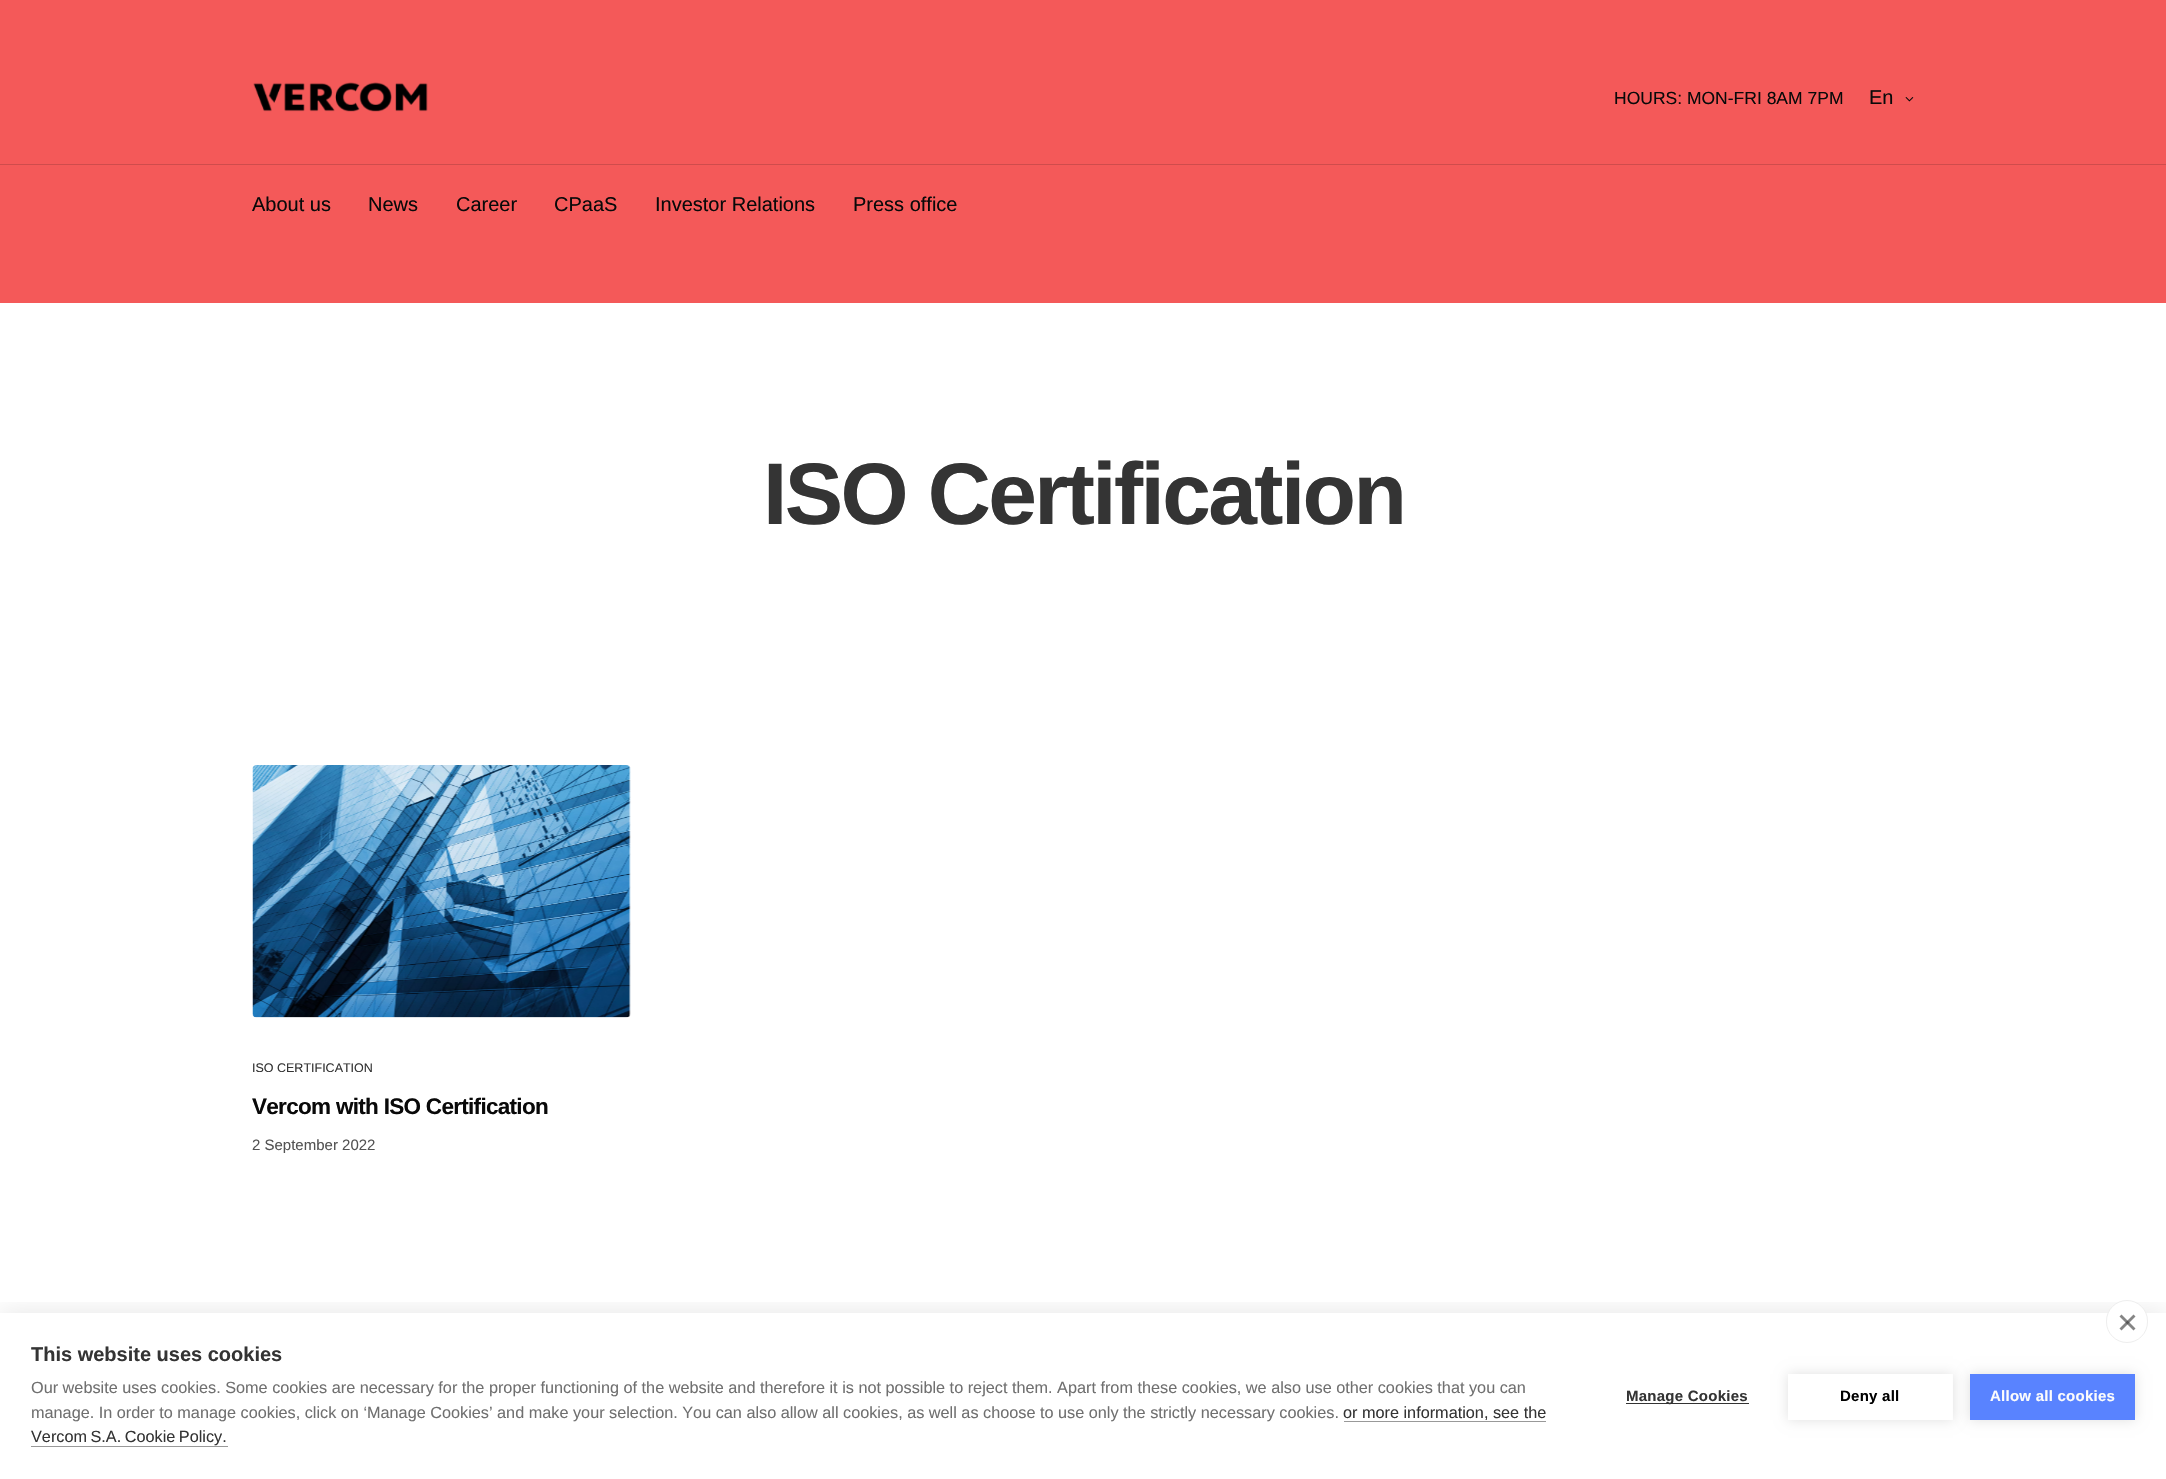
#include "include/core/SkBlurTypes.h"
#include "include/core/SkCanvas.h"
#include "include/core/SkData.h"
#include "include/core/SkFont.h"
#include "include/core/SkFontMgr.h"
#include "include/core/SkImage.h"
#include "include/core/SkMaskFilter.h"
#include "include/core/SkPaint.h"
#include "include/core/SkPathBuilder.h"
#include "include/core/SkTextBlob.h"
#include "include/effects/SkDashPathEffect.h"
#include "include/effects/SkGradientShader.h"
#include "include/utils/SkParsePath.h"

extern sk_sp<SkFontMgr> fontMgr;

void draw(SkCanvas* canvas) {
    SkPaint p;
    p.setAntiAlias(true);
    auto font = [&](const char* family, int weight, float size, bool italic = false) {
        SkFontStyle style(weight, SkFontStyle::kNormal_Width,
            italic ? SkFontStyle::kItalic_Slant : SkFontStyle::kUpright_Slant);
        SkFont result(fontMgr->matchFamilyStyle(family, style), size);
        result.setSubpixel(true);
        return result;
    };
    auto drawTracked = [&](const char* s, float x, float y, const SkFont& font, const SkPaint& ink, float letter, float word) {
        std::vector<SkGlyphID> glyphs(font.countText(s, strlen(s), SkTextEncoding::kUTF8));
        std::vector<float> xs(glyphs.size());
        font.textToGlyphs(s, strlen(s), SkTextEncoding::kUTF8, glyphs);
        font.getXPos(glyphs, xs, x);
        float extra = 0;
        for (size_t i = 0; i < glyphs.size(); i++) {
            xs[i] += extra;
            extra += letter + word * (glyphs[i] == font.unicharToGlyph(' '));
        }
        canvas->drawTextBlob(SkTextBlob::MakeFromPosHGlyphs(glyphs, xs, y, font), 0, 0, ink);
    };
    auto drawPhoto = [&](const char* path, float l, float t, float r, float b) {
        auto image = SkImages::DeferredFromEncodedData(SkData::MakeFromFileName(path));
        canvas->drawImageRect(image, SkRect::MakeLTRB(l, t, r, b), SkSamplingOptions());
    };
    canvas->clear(0xFFFFFFFF);
    p.setColor(0xFFF45959);
    canvas->drawRect(SkRect::MakeLTRB(0, 0, 2166, 303), p);
    drawPhoto("media/1.png", 253, 82, 428, 112);
    auto font1 = font("Liberation Sans", 400, 17.5f);
    p.setColor(0xFF090909);
    canvas->drawString("HOURS: MON-FRI 8AM 7PM", 1614, 104, font1, p);
    auto font2 = font("Liberation Sans", 400, 20);
    canvas->drawString("En", 1869, 104, font2, p);
    drawPhoto("media/2.png", 1905, 97, 1914, 102);
    p.setColor(0xFFCF4C4C);
    canvas->drawRect(SkRect::MakeLTRB(0, 164, 2166, 165), p);
    p.setColor(0xFF090909);
    {
        const struct { const char* s; float x, y; } items[] = {
            {"About us", 252, 211},
            {"News", 368, 211},
            {"Career", 456, 211},
            {"CPaaS", 554, 211},
            {"Investor Relations", 655, 211},
            {"Press office", 853, 211},
        };
        for (auto [s, x, y] : items) {
            canvas->drawString(s, x, y, font2, p);
        }
    }
    auto font3 = font("Liberation Sans", 700, 87.5f);
    p.setColor(0xFF343434);
    drawTracked("ISO Certification", 763, 524, font3, p, -2.6f, 0);
    drawPhoto("media/3.png", 252, 765, 631, 1018);
    auto font4 = font("Liberation Sans", 400, 12.5f);
    canvas->drawString("ISO CERTIFICATION", 252, 1072, font4, p);
    auto font5 = font("Liberation Sans", 700, 22.5f);
    p.setColor(0xFF090909);
    drawTracked("Vercom with ISO Certification", 252, 1114, font5, p, -0.7f, 0);
    auto font6 = font("Liberation Sans", 400, 15);
    p.setColor(0xFF535353);
    canvas->drawString("2 September 2022", 252, 1150, font6, p);
    canvas->save();
    canvas->clipRect(SkRect::MakeLTRB(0, 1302, 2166, 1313));
    p.setColor(0x1A000000);
    p.setMaskFilter(SkMaskFilter::MakeBlur(kNormal_SkBlurStyle, 12.5f));
    canvas->drawRect(SkRect::MakeLTRB(0, 1313, 2166, 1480), p);
    p.setMaskFilter(nullptr);
    canvas->restore();
    p.setColor(0xFFFFFFFF);
    canvas->drawRoundRect(SkRect::MakeLTRB(2106.5f, 1300.5f, 2147.5f, 1342.5f), 20.5f, 20.5f, p);
    p.setStyle(SkPaint::kStroke_Style);
    p.setStrokeWidth(1);
    p.setColor(0xFFEEEEEE);
    canvas->drawRoundRect(SkRect::MakeLTRB(2106.5f, 1300.5f, 2147.5f, 1342.5f), 20.5f, 20.5f, p);
    p.setStyle(SkPaint::kFill_Style);
    p.setColor(0xFF858585);
    canvas->drawPath(SkPathBuilder().moveTo(2119.5f, 1328.5f).lineTo(2133.5f, 1314.5f).lineTo(2135.5f, 1316.5f).lineTo(2121.5f, 1330.5f).close().detach(), p);
    p.setColor(0x99333333);
    canvas->drawPath(SkPathBuilder().moveTo(2121.5f, 1314.5f).lineTo(2135.5f, 1328.5f).lineTo(2133.5f, 1330.5f).lineTo(2119.5f, 1316.5f).close().detach(), p);
    auto font7 = font("Liberation Sans", 700, 20);
    p.setColor(0xFF343434);
    canvas->drawString("This website uses cookies", 31, 1361, font7, p);
    auto font8 = font("Liberation Sans", 400, 16.25f);
    p.setColor(0xFF707070);
    canvas->drawString("Our website uses cookies. Some cookies are necessary for the proper functioning of the website and therefore it is not possible to reject them. Apart from these cookies, we also use other cookies that you can", 31, 1393, font8, p);
    canvas->drawString("manage. In order to manage cookies, click on ‘Manage Cookies’ and make your selection. You can also allow all cookies, as well as choose to use only the strictly necessary cookies.", 31, 1418, font8, p);
    p.setColor(0xFF343434);
    canvas->drawString("or more information, see the", 1343, 1418, font8, p);
    p.setColor(0xFF999999);
    canvas->drawRect(SkRect::MakeLTRB(1344, 1421, 1546, 1422), p);
    p.setColor(0xFF343434);
    drawTracked("Vercom S.A. Cookie Policy.", 31, 1442, font8, p, 0, -1);
    p.setColor(0xFF999999);
    canvas->drawRect(SkRect::MakeLTRB(31, 1446, 228, 1447), p);
    p.setColor(0xFF333333);
    canvas->drawRect(SkRect::MakeLTRB(1626, 1403, 1749, 1404), p);
    auto font9 = font("Liberation Sans", 700, 15);
    p.setColor(0xFF343434);
    drawTracked("Manage Cookies", 1626, 1401, font9, p, 0.25f, 0);
    p.setColor(0x1F000000);
    p.setMaskFilter(SkMaskFilter::MakeBlur(kNormal_SkBlurStyle, 6));
    canvas->drawRect(SkRect::MakeLTRB(1788, 1374, 1953, 1420), p);
    p.setMaskFilter(nullptr);
    p.setColor(0xFFFFFFFF);
    canvas->drawRect(SkRect::MakeLTRB(1788, 1374, 1953, 1420), p);
    p.setColor(0xFF000000);
    drawTracked("Deny all", 1840, 1401, font9, p, 0.25f, 0);
    p.setColor(0x1F000000);
    p.setMaskFilter(SkMaskFilter::MakeBlur(kNormal_SkBlurStyle, 6));
    canvas->drawRect(SkRect::MakeLTRB(1970, 1374, 2135, 1420), p);
    p.setMaskFilter(nullptr);
    p.setColor(0xFF5983FF);
    canvas->drawRect(SkRect::MakeLTRB(1970, 1374, 2135, 1420), p);
    p.setColor(0xFFFCFCFC);
    drawTracked("Allow all cookies", 1990, 1401, font9, p, 0.25f, 0);
}
